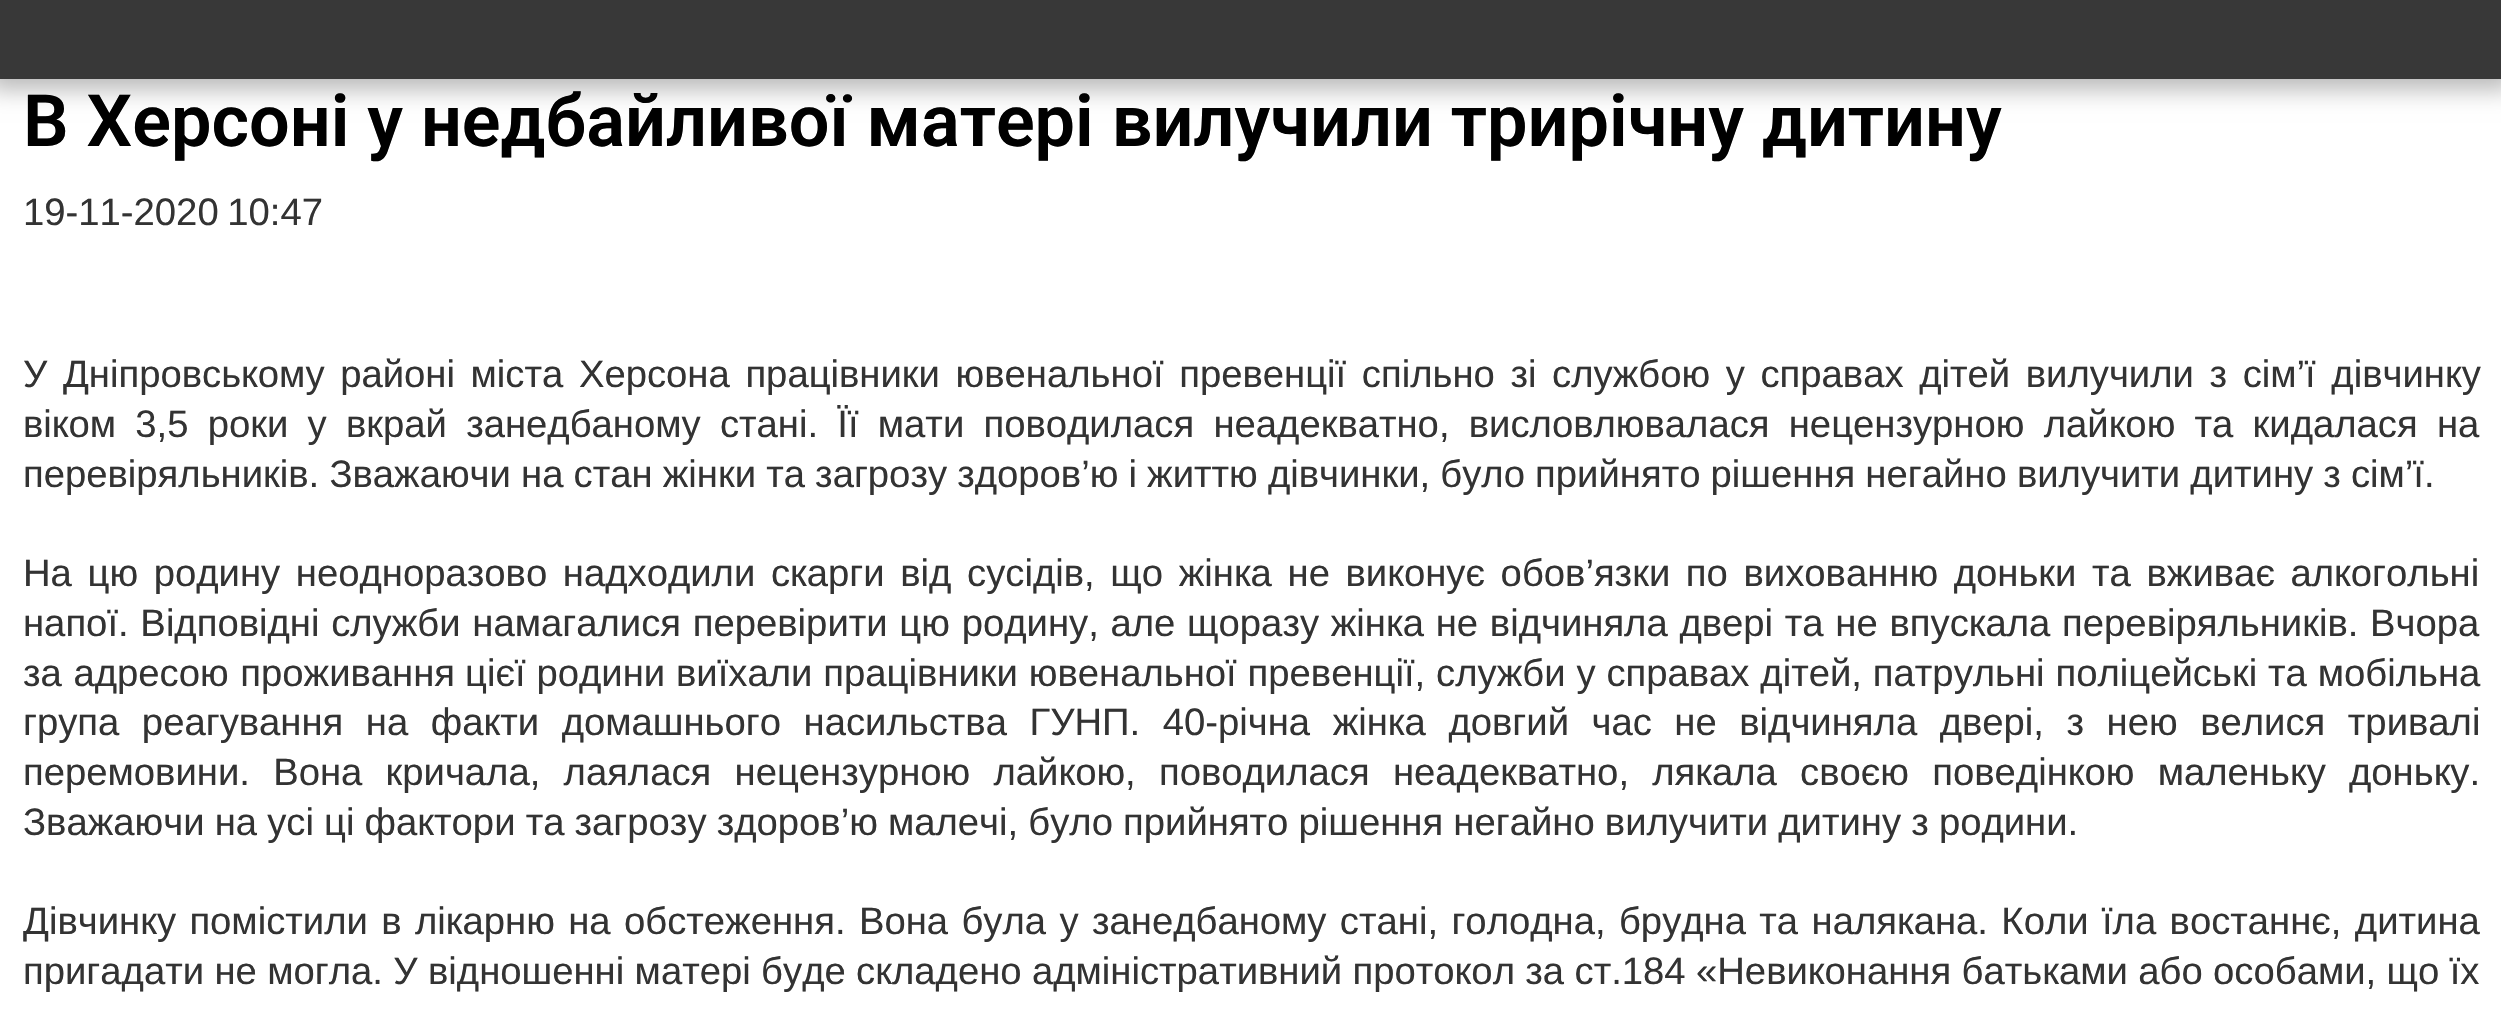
#include "include/core/SkBlurTypes.h"
#include "include/core/SkCanvas.h"
#include "include/core/SkData.h"
#include "include/core/SkFont.h"
#include "include/core/SkFontMgr.h"
#include "include/core/SkImage.h"
#include "include/core/SkMaskFilter.h"
#include "include/core/SkPaint.h"
#include "include/core/SkPathBuilder.h"
#include "include/core/SkTextBlob.h"
#include "include/effects/SkDashPathEffect.h"
#include "include/effects/SkGradientShader.h"
#include "include/utils/SkParsePath.h"

extern sk_sp<SkFontMgr> fontMgr;

void draw(SkCanvas* canvas) {
    SkPaint p;
    p.setAntiAlias(true);
    auto font = [&](const char* family, int weight, float size, bool italic = false) {
        SkFontStyle style(weight, SkFontStyle::kNormal_Width,
            italic ? SkFontStyle::kItalic_Slant : SkFontStyle::kUpright_Slant);
        SkFont result(fontMgr->matchFamilyStyle(family, style), size);
        result.setSubpixel(true);
        return result;
    };
    auto drawTracked = [&](const char* s, float x, float y, const SkFont& font, const SkPaint& ink, float letter, float word) {
        std::vector<SkGlyphID> glyphs(font.countText(s, strlen(s), SkTextEncoding::kUTF8));
        std::vector<float> xs(glyphs.size());
        font.textToGlyphs(s, strlen(s), SkTextEncoding::kUTF8, glyphs);
        font.getXPos(glyphs, xs, x);
        float extra = 0;
        for (size_t i = 0; i < glyphs.size(); i++) {
            xs[i] += extra;
            extra += letter + word * (glyphs[i] == font.unicharToGlyph(' '));
        }
        canvas->drawTextBlob(SkTextBlob::MakeFromPosHGlyphs(glyphs, xs, y, font), 0, 0, ink);
    };
    canvas->clear(0xFFFFFFFF);
    p.setColor(0x45000000);
    p.setMaskFilter(SkMaskFilter::MakeBlur(kNormal_SkBlurStyle, 11));
    canvas->drawRect(SkRect::MakeLTRB(-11, -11, 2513, 90), p);
    p.setMaskFilter(nullptr);
    p.setColor(0xFF383838);
    canvas->drawRect(SkRect::MakeLTRB(0, 0, 2501, 79), p);
    auto font1 = font("Roboto", 600, 72);
    p.setColor(0xFF000000);
    canvas->drawString("В Херсоні у недбайливої матері вилучили трирічну дитину", 23, 146, font1, p);
    auto font2 = font("Liberation Sans", 400, 38.25f);
    p.setColor(0xFF333333);
    drawTracked("19-11-2020 10:47", 23, 225, font2, p, 0, -2);
    drawTracked("У Дніпровському районі міста Херсона працівники ювенальної превенції спільно зі службою у справах дітей вилучили з сім’ї дівчинку", 23, 387, font2, p, 0, 5);
    drawTracked("віком 3,5 роки у вкрай занедбаному стані. Її мати поводилася неадекватно, висловлювалася нецензурною лайкою та кидалася на", 23, 437, font2, p, 0, 8.6f);
    drawTracked("перевіряльників. Зважаючи на стан жінки та загрозу здоров’ю і життю дівчинки, було прийнято рішення негайно вилучити дитину з сім’ї.", 23, 487, font2, p, 0, -0.5f);
    drawTracked("На цю родину неодноразово надходили скарги від сусідів, що жінка не виконує обов’язки по вихованню доньки та вживає алкогольні", 23, 586, font2, p, 0, 5);
    drawTracked("напої. Відповідні служби намагалися перевірити цю родину, але щоразу жінка не відчиняла двері та не впускала перевіряльників. Вчора", 23, 636, font2, p, 0, 1.1f);
    drawTracked("за адресою проживання", 23, 686, font2, p, 0, 1);
    drawTracked("цієї родини виїхали працівники ювенальної превенції, служби у справах дітей, патрульні поліцейські та мобільна", 465, 686, font2, p, 0, 0.25f);
    drawTracked("група реагування на факти домашнього насильства ГУНП. 40-річна жінка довгий час не відчиняла двері, з нею велися тривалі", 23, 735, font2, p, 0, 11.9f);
    drawTracked("перемовини. Вона кричала, лаялася нецензурною лайкою, поводилася неадекватно, лякала своєю поведінкою маленьку доньку.", 23, 785, font2, p, 0, 12.6f);
    drawTracked("Зважаючи на усі ці фактори та загрозу здоров’ю малечі, було прийнято рішення негайно вилучити дитину з родини.", 23, 835, font2, p, 0, -0.5f);
    drawTracked("Дівчинку помістили в лікарню на обстеження. Вона була у занедбаному стані, голодна, брудна та налякана. Коли їла востаннє, дитина", 23, 934, font2, p, 0, 2.75f);
    drawTracked("пригадати не могла. У відношенні матері буде складено адміністративний протокол за ст.184 «Невиконання батьками або особами, що їх", 23, 984, font2, p, 0, -0.25f);
}
